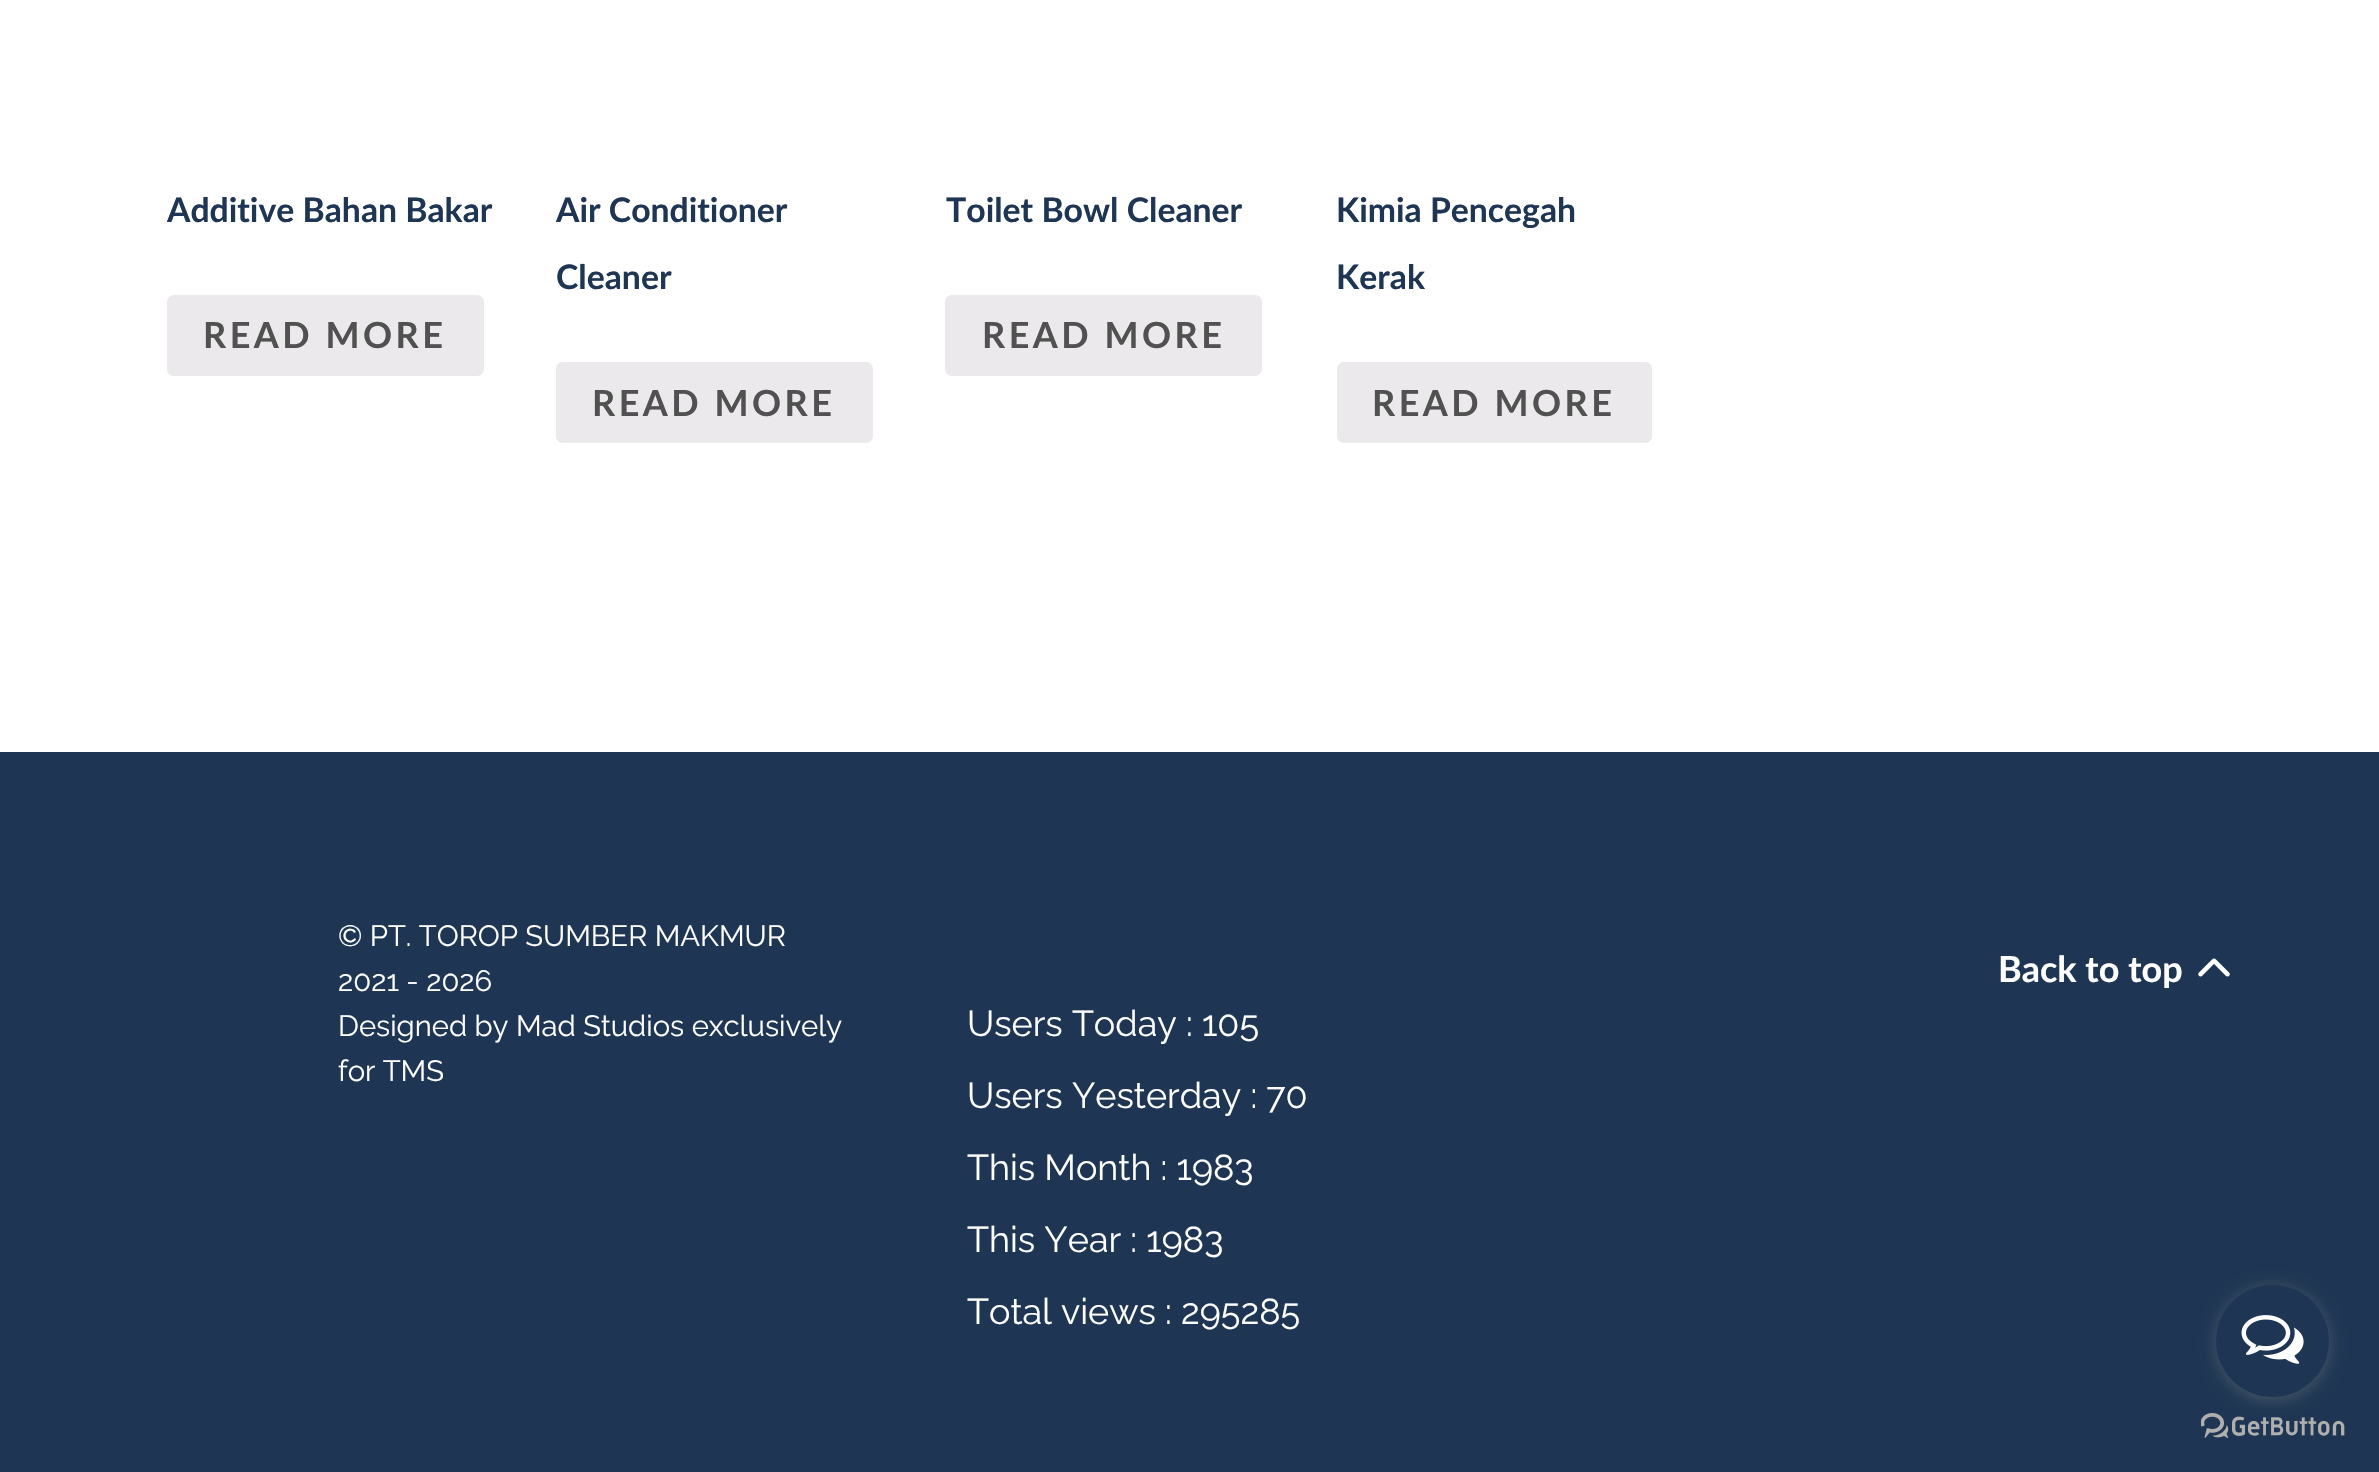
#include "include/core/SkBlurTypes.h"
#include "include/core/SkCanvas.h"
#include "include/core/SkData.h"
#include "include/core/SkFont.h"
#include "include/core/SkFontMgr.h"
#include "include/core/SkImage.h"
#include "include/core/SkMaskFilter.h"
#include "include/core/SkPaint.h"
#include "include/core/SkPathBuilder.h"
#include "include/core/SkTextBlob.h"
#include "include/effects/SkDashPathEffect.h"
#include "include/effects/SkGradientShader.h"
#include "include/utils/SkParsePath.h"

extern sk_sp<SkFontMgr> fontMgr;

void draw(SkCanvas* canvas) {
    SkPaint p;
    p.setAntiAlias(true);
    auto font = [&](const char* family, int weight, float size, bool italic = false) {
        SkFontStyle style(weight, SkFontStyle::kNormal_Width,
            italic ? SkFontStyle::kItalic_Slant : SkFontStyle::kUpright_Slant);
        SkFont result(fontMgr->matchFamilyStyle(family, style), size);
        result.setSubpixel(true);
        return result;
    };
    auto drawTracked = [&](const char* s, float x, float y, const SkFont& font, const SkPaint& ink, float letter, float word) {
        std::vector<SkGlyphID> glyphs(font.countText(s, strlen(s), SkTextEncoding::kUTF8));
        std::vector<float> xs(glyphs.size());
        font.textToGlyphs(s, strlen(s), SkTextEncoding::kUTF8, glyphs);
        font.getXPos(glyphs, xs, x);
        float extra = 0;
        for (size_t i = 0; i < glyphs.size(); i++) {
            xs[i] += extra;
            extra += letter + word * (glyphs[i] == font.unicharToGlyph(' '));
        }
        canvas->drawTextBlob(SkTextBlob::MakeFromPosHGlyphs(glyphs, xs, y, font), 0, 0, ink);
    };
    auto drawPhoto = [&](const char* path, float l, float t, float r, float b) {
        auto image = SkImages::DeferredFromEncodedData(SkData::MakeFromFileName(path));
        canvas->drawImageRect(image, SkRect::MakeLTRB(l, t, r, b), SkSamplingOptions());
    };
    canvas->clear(0xFFFFFFFF);
    auto font1 = font("Lato", 700, 33.75f);
    p.setColor(0xFF1E3653);
    canvas->drawString("Additive Bahan Bakar", 167, 222, font1, p);
    p.setColor(0xFFEBE9EB);
    canvas->drawRoundRect(SkRect::MakeLTRB(167, 295, 484, 376), 7, 7, p);
    auto font2 = font("Lato", 700, 36);
    p.setColor(0xFF515151);
    drawTracked("READ MORE", 203, 348, font2, p, 3.5f, 0);
    p.setColor(0xFF1E3653);
    canvas->drawString("Air Conditioner", 556, 222, font1, p);
    canvas->drawString("Cleaner", 556, 289, font1, p);
    p.setColor(0xFFEBE9EB);
    canvas->drawRoundRect(SkRect::MakeLTRB(556, 362, 873, 443), 7, 7, p);
    p.setColor(0xFF515151);
    drawTracked("READ MORE", 592, 416, font2, p, 3.5f, 0);
    p.setColor(0xFF1E3653);
    canvas->drawString("Toilet Bowl Cleaner", 946, 222, font1, p);
    p.setColor(0xFFEBE9EB);
    canvas->drawRoundRect(SkRect::MakeLTRB(945, 295, 1262, 376), 7, 7, p);
    p.setColor(0xFF515151);
    drawTracked("READ MORE", 982, 348, font2, p, 3.5f, 0);
    p.setColor(0xFF1E3653);
    canvas->drawString("Kimia Pencegah", 1336, 222, font1, p);
    canvas->drawString("Kerak", 1336, 289, font1, p);
    p.setColor(0xFFEBE9EB);
    canvas->drawRoundRect(SkRect::MakeLTRB(1337, 362, 1652, 443), 7, 7, p);
    p.setColor(0xFF515151);
    drawTracked("READ MORE", 1372, 416, font2, p, 3.5f, 0);
    p.setColor(0xFF1E3653);
    canvas->drawRect(SkRect::MakeLTRB(0, 752, 2379, 1472), p);
    auto font3 = font("Raleway", 400, 29.25f);
    p.setColor(0xFFFFFFFF);
    {
        const struct { const char* s; float x, y; } items[] = {
            {"© PT. TOROP SUMBER MAKMUR", 338, 946},
            {"2021 - 2026", 338, 991},
            {"Designed by Mad Studios exclusively", 338, 1036},
            {"for TMS", 338, 1081},
        };
        for (auto [s, x, y] : items) {
            canvas->drawString(s, x, y, font3, p);
        }
    }
    canvas->drawString("Back to top", 1998, 982, font2, p);
    drawPhoto("media/1.png", 2198, 958, 2230, 977);
    auto font4 = font("Raleway", 400, 36);
    {
        const struct { const char* s; float x, y; } items[] = {
            {"Users Today : 105", 967, 1036},
            {"Users Yesterday : 70", 967, 1108},
            {"This Month : 1983", 967, 1180},
            {"This Year : 1983", 967, 1252},
            {"Total views : 295285", 967, 1324},
        };
        for (auto [s, x, y] : items) {
            canvas->drawString(s, x, y, font4, p);
        }
    }
    drawPhoto("media/3.png", 2201, 1413, 2345, 1438);
    p.setColor(0x66888888);
    p.setMaskFilter(SkMaskFilter::MakeBlur(kNormal_SkBlurStyle, 8));
    canvas->drawRoundRect(SkRect::MakeLTRB(2216, 1287, 2329, 1400), 56.5f, 56.5f, p);
    p.setMaskFilter(nullptr);
    p.setColor(0xFF1E3554);
    canvas->drawRoundRect(SkRect::MakeLTRB(2216, 1285, 2329, 1397), 56, 56, p);
    drawPhoto("media/2.png", 2241, 1315, 2304, 1364);
}
